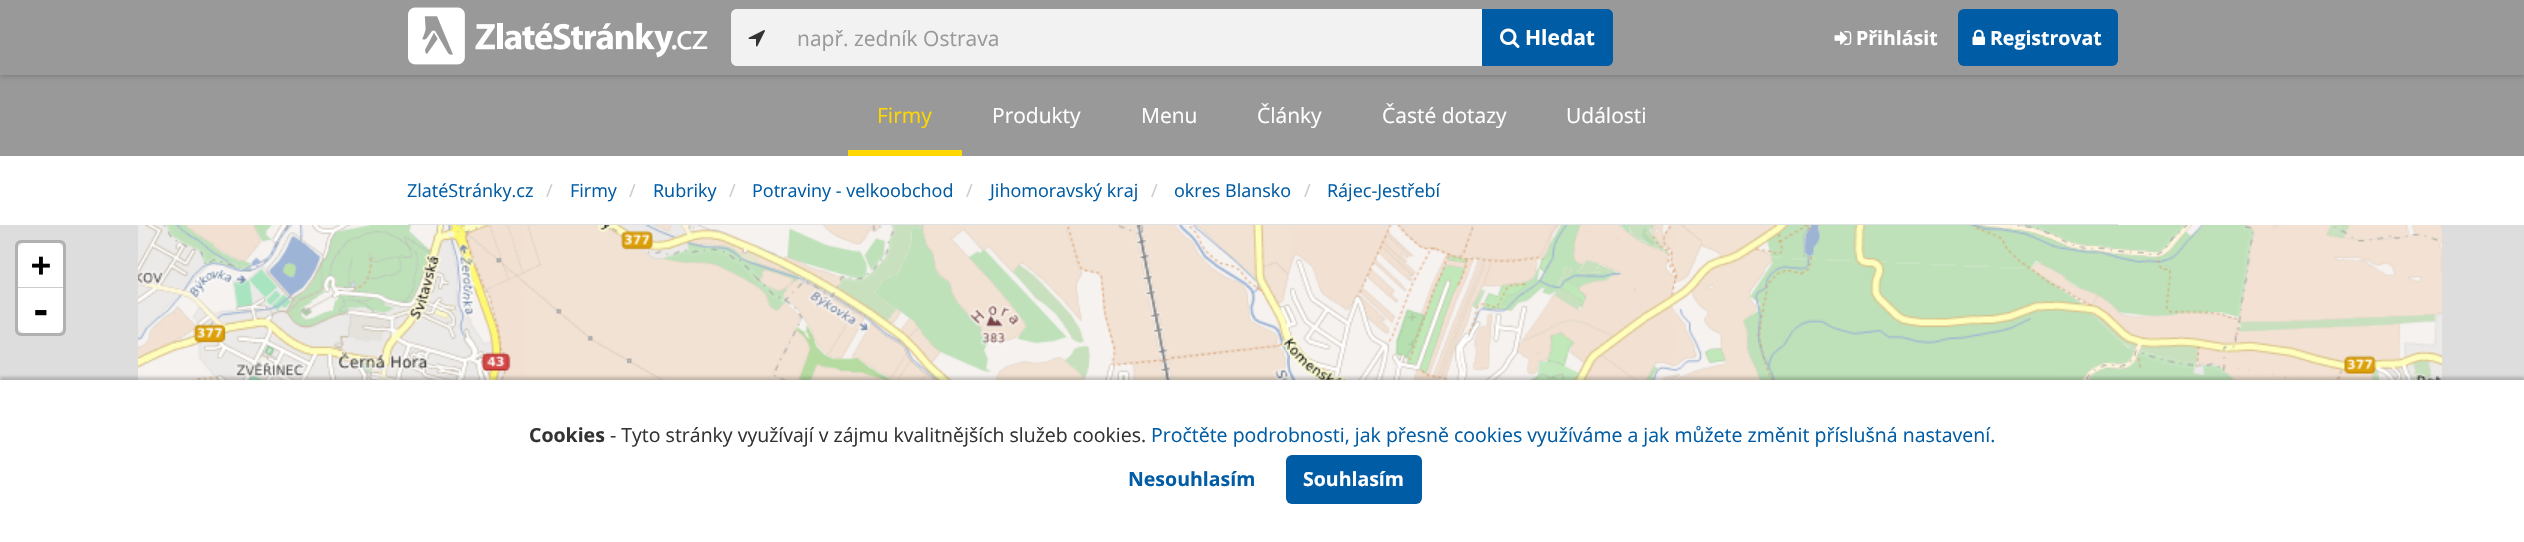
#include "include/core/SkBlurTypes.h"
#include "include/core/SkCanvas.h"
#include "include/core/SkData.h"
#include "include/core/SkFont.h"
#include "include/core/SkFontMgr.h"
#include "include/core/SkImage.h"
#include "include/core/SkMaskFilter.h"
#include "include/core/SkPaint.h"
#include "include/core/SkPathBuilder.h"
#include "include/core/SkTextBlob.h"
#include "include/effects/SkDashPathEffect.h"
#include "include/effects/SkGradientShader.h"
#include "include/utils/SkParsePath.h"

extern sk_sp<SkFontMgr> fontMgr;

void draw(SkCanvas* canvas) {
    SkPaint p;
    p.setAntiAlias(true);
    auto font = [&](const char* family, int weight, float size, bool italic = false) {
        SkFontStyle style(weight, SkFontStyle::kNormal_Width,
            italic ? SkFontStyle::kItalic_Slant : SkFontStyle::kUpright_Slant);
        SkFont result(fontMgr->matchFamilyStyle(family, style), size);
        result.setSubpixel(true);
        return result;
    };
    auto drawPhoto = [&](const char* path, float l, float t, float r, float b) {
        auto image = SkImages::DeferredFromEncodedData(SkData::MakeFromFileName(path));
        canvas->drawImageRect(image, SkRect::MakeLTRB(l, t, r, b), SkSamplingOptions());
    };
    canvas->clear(0xFFFFFFFF);
    p.setColor(0xFF999999);
    canvas->drawRect(SkRect::MakeLTRB(0, 75, 2524, 156), p);
    p.setColor(0x4D000000);
    p.setMaskFilter(SkMaskFilter::MakeBlur(kNormal_SkBlurStyle, 3));
    canvas->drawRect(SkRect::MakeLTRB(0, 0, 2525, 75), p);
    p.setMaskFilter(nullptr);
    p.setColor(0xFF999999);
    canvas->drawRect(SkRect::MakeLTRB(0, 0, 2524, 75), p);
    drawPhoto("media/1.png", 408, 7, 708, 65);
    p.setColor(0xFFF2F2F2);
    canvas->drawPath(SkPathBuilder().moveTo(737, 9).lineTo(783, 9).lineTo(783, 66).lineTo(737, 66).cubicTo(733.5f, 66, 731, 63.5f, 731, 60).lineTo(731, 15).cubicTo(731, 11.5f, 733.5f, 9, 737, 9).close().detach(), p);
    drawPhoto("media/2.png", 748, 30, 765, 47);
    canvas->drawRect(SkRect::MakeLTRB(783, 9, 1482, 66), p);
    auto font1 = font("Open Sans", 400, 21);
    p.setColor(0xFF999999);
    canvas->drawString("např. zedník Ostrava", 797, 46, font1, p);
    p.setColor(0xFF005CA5);
    canvas->drawPath(SkPathBuilder().moveTo(1482, 9).lineTo(1607, 9).cubicTo(1610.5f, 9, 1613, 11.5f, 1613, 15).lineTo(1613, 60).cubicTo(1613, 63.5f, 1610.5f, 66, 1607, 66).lineTo(1482, 66).close().detach(), p);
    drawPhoto("media/3.png", 1500, 28, 1520, 48);
    auto font2 = font("Open Sans", 700, 21);
    p.setColor(0xFFFFFFFF);
    canvas->drawString("Hledat", 1525, 45, font2, p);
    drawPhoto("media/4.png", 1834, 31, 1852, 45);
    auto font3 = font("Open Sans", 700, 19.5f);
    canvas->drawString("Přihlásit", 1856, 45, font3, p);
    p.setColor(0xFF005CA5);
    canvas->drawRoundRect(SkRect::MakeLTRB(1958, 9, 2118, 66), 6, 6, p);
    drawPhoto("media/5.png", 1972, 29, 1986, 45);
    p.setColor(0xFFFFFFFF);
    canvas->drawString("Registrovat", 1990, 45, font3, p);
    p.setColor(0xFFFFD700);
    canvas->drawRect(SkRect::MakeLTRB(848, 150, 962, 156), p);
    canvas->drawString("Firmy", 877, 123, font1, p);
    p.setColor(0xFFFFFFFF);
    {
        const struct { const char* s; float x, y; } items[] = {
            {"Produkty", 992, 123},
            {"Menu", 1141, 123},
            {"Články", 1257, 123},
            {"Časté dotazy", 1382, 123},
            {"Události", 1566, 123},
        };
        for (auto [s, x, y] : items) {
            canvas->drawString(s, x, y, font1, p);
        }
    }
    p.setColor(0xFFDEE1E3);
    canvas->drawRect(SkRect::MakeLTRB(408, 224, 2118, 225), p);
    auto font4 = font("Open Sans", 400, 18);
    p.setColor(0xFF005CA5);
    canvas->drawString("ZlatéStránky.cz", 407, 197, font4, p);
    p.setColor(0xFFCCCCCC);
    canvas->drawString("/", 546, 197, font4, p);
    p.setColor(0xFF005CA5);
    canvas->drawString("Firmy", 570, 197, font4, p);
    p.setColor(0xFFCCCCCC);
    canvas->drawString("/", 629, 197, font4, p);
    p.setColor(0xFF005CA5);
    canvas->drawString("Rubriky", 653, 197, font4, p);
    p.setColor(0xFFCCCCCC);
    canvas->drawString("/", 729, 197, font4, p);
    p.setColor(0xFF005CA5);
    canvas->drawString("Potraviny - velkoobchod", 752, 197, font4, p);
    p.setColor(0xFFCCCCCC);
    canvas->drawString("/", 966, 197, font4, p);
    p.setColor(0xFF005CA5);
    canvas->drawString("Jihomoravský kraj", 990, 197, font4, p);
    p.setColor(0xFFCCCCCC);
    canvas->drawString("/", 1151, 197, font4, p);
    p.setColor(0xFF005CA5);
    canvas->drawString("okres Blansko", 1174, 197, font4, p);
    p.setColor(0xFFCCCCCC);
    canvas->drawString("/", 1304, 197, font4, p);
    p.setColor(0xFF005CA5);
    canvas->drawString("Rájec-Jestřebí", 1327, 197, font4, p);
    p.setColor(0xFFDDDDDD);
    canvas->drawRect(SkRect::MakeLTRB(0, 225, 2524, 380), p);
    p.setStyle(SkPaint::kStroke_Style);
    p.setStrokeWidth(3);
    p.setColor(0xFFB1B1B1);
    canvas->drawRoundRect(SkRect::MakeLTRB(16.5f, 241.5f, 64.5f, 334.5f), 4.5f, 4.5f, p);
    p.setStyle(SkPaint::kFill_Style);
    p.setColor(0xFFFFFFFF);
    canvas->drawPath(SkPathBuilder().moveTo(24, 243).lineTo(57, 243).cubicTo(60.5f, 243, 63, 245.5f, 63, 249).lineTo(63, 288).lineTo(18, 288).lineTo(18, 249).cubicTo(18, 245.5f, 20.5f, 243, 24, 243).close().detach(), p);
    p.setColor(0xFFCCCCCC);
    canvas->drawRect(SkRect::MakeLTRB(18, 287, 63, 288), p);
    auto font5 = font("DejaVu Sans Mono", 700, 33);
    p.setColor(0xFF000000);
    canvas->drawString("+", 31, 276, font5, p);
    p.setColor(0xFFFFFFFF);
    canvas->drawPath(SkPathBuilder().moveTo(18, 288).lineTo(63, 288).lineTo(63, 327).cubicTo(63, 330.5f, 60.5f, 333, 57, 333).lineTo(24, 333).cubicTo(20.5f, 333, 18, 330.5f, 18, 327).close().detach(), p);
    auto font6 = font("DejaVu Sans Mono", 700, 36);
    p.setColor(0xFF000000);
    canvas->drawString("-", 30, 323, font6, p);
    drawPhoto("media/6.png", 138, 225, 522, 380);
    drawPhoto("media/7.png", 522, 225, 906, 380);
    drawPhoto("media/8.png", 906, 225, 1290, 380);
    drawPhoto("media/9.png", 1290, 225, 1674, 380);
    drawPhoto("media/10.png", 1674, 225, 2058, 380);
    drawPhoto("media/11.png", 2058, 225, 2442, 380);
    p.setColor(0x33000000);
    p.setMaskFilter(SkMaskFilter::MakeBlur(kNormal_SkBlurStyle, 1.5f));
    canvas->drawRect(SkRect::MakeLTRB(0, 377, 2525, 540), p);
    p.setMaskFilter(nullptr);
    p.setColor(0xFFFFFFFF);
    canvas->drawRect(SkRect::MakeLTRB(0, 380, 2524, 542), p);
    p.setColor(0xFF333333);
    canvas->drawString("Cookies", 529, 442, font3, p);
    auto font7 = font("Open Sans", 400, 19.5f);
    canvas->drawString("- Tyto stránky využívají v zájmu kvalitnějších služeb cookies.", 610, 442, font7, p);
    p.setColor(0xFF005CA5);
    canvas->drawString("Pročtěte podrobnosti, jak přesně cookies využíváme a jak můžete změnit příslušná nastavení.", 1151, 442, font7, p);
    canvas->drawString("Nesouhlasím", 1128, 486, font3, p);
    canvas->drawRoundRect(SkRect::MakeLTRB(1286, 455, 1422, 504), 6, 6, p);
    p.setColor(0xFFFFFFFF);
    canvas->drawString("Souhlasím", 1303, 486, font3, p);
}
